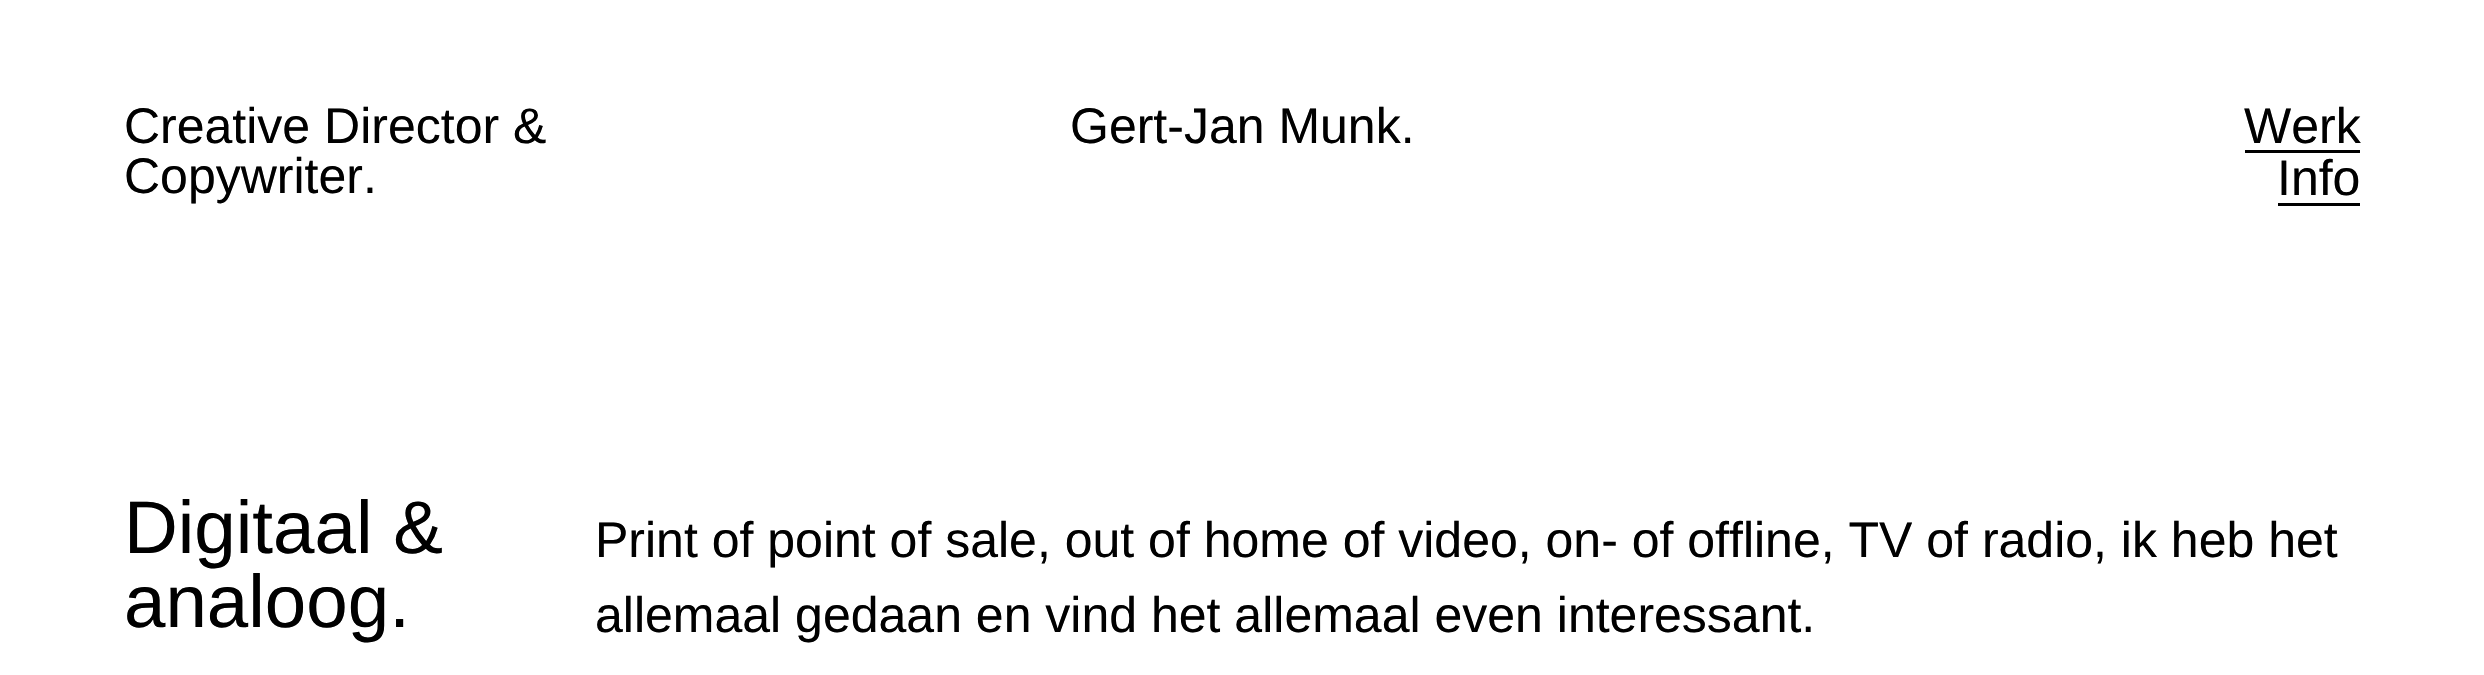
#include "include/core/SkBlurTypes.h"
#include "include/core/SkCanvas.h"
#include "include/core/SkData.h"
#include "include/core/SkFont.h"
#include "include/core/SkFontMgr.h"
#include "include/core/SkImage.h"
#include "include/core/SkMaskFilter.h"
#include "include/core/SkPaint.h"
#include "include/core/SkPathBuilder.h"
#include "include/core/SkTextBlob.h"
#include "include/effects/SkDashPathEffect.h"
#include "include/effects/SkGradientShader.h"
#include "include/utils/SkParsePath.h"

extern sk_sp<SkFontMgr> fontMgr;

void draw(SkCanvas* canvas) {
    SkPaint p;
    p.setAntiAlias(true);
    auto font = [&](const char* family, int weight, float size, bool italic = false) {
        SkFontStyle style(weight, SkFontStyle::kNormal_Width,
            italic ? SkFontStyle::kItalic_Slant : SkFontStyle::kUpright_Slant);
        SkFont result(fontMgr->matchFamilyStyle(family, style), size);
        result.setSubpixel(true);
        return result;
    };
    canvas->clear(0xFFFFFFFF);
    auto font1 = font("Liberation Sans", 400, 50);
    p.setColor(0xFF000000);
    {
        const struct { const char* s; float x, y; } items[] = {
            {"Creative Director &", 124, 143},
            {"Copywriter.", 124, 193},
            {"Gert-Jan Munk.", 1070, 143},
        };
        for (auto [s, x, y] : items) {
            canvas->drawString(s, x, y, font1, p);
        }
    }
    canvas->drawRect(SkRect::MakeLTRB(2245, 150, 2360, 153), p);
    canvas->drawString("Werk", 2244, 143, font1, p);
    canvas->drawRect(SkRect::MakeLTRB(2278, 203, 2360, 206), p);
    canvas->drawString("Info", 2277, 195, font1, p);
    auto font2 = font("Liberation Sans", 400, 74.5f);
    canvas->drawString("Digitaal &", 124, 553, font2, p);
    canvas->drawString("analoog.", 124, 627, font2, p);
    canvas->drawString("Print of point of sale, out of home of video, on- of offline, TV of radio, ik heb het", 595, 557, font1, p);
    canvas->drawString("allemaal gedaan en vind het allemaal even interessant.", 595, 632, font1, p);
}
